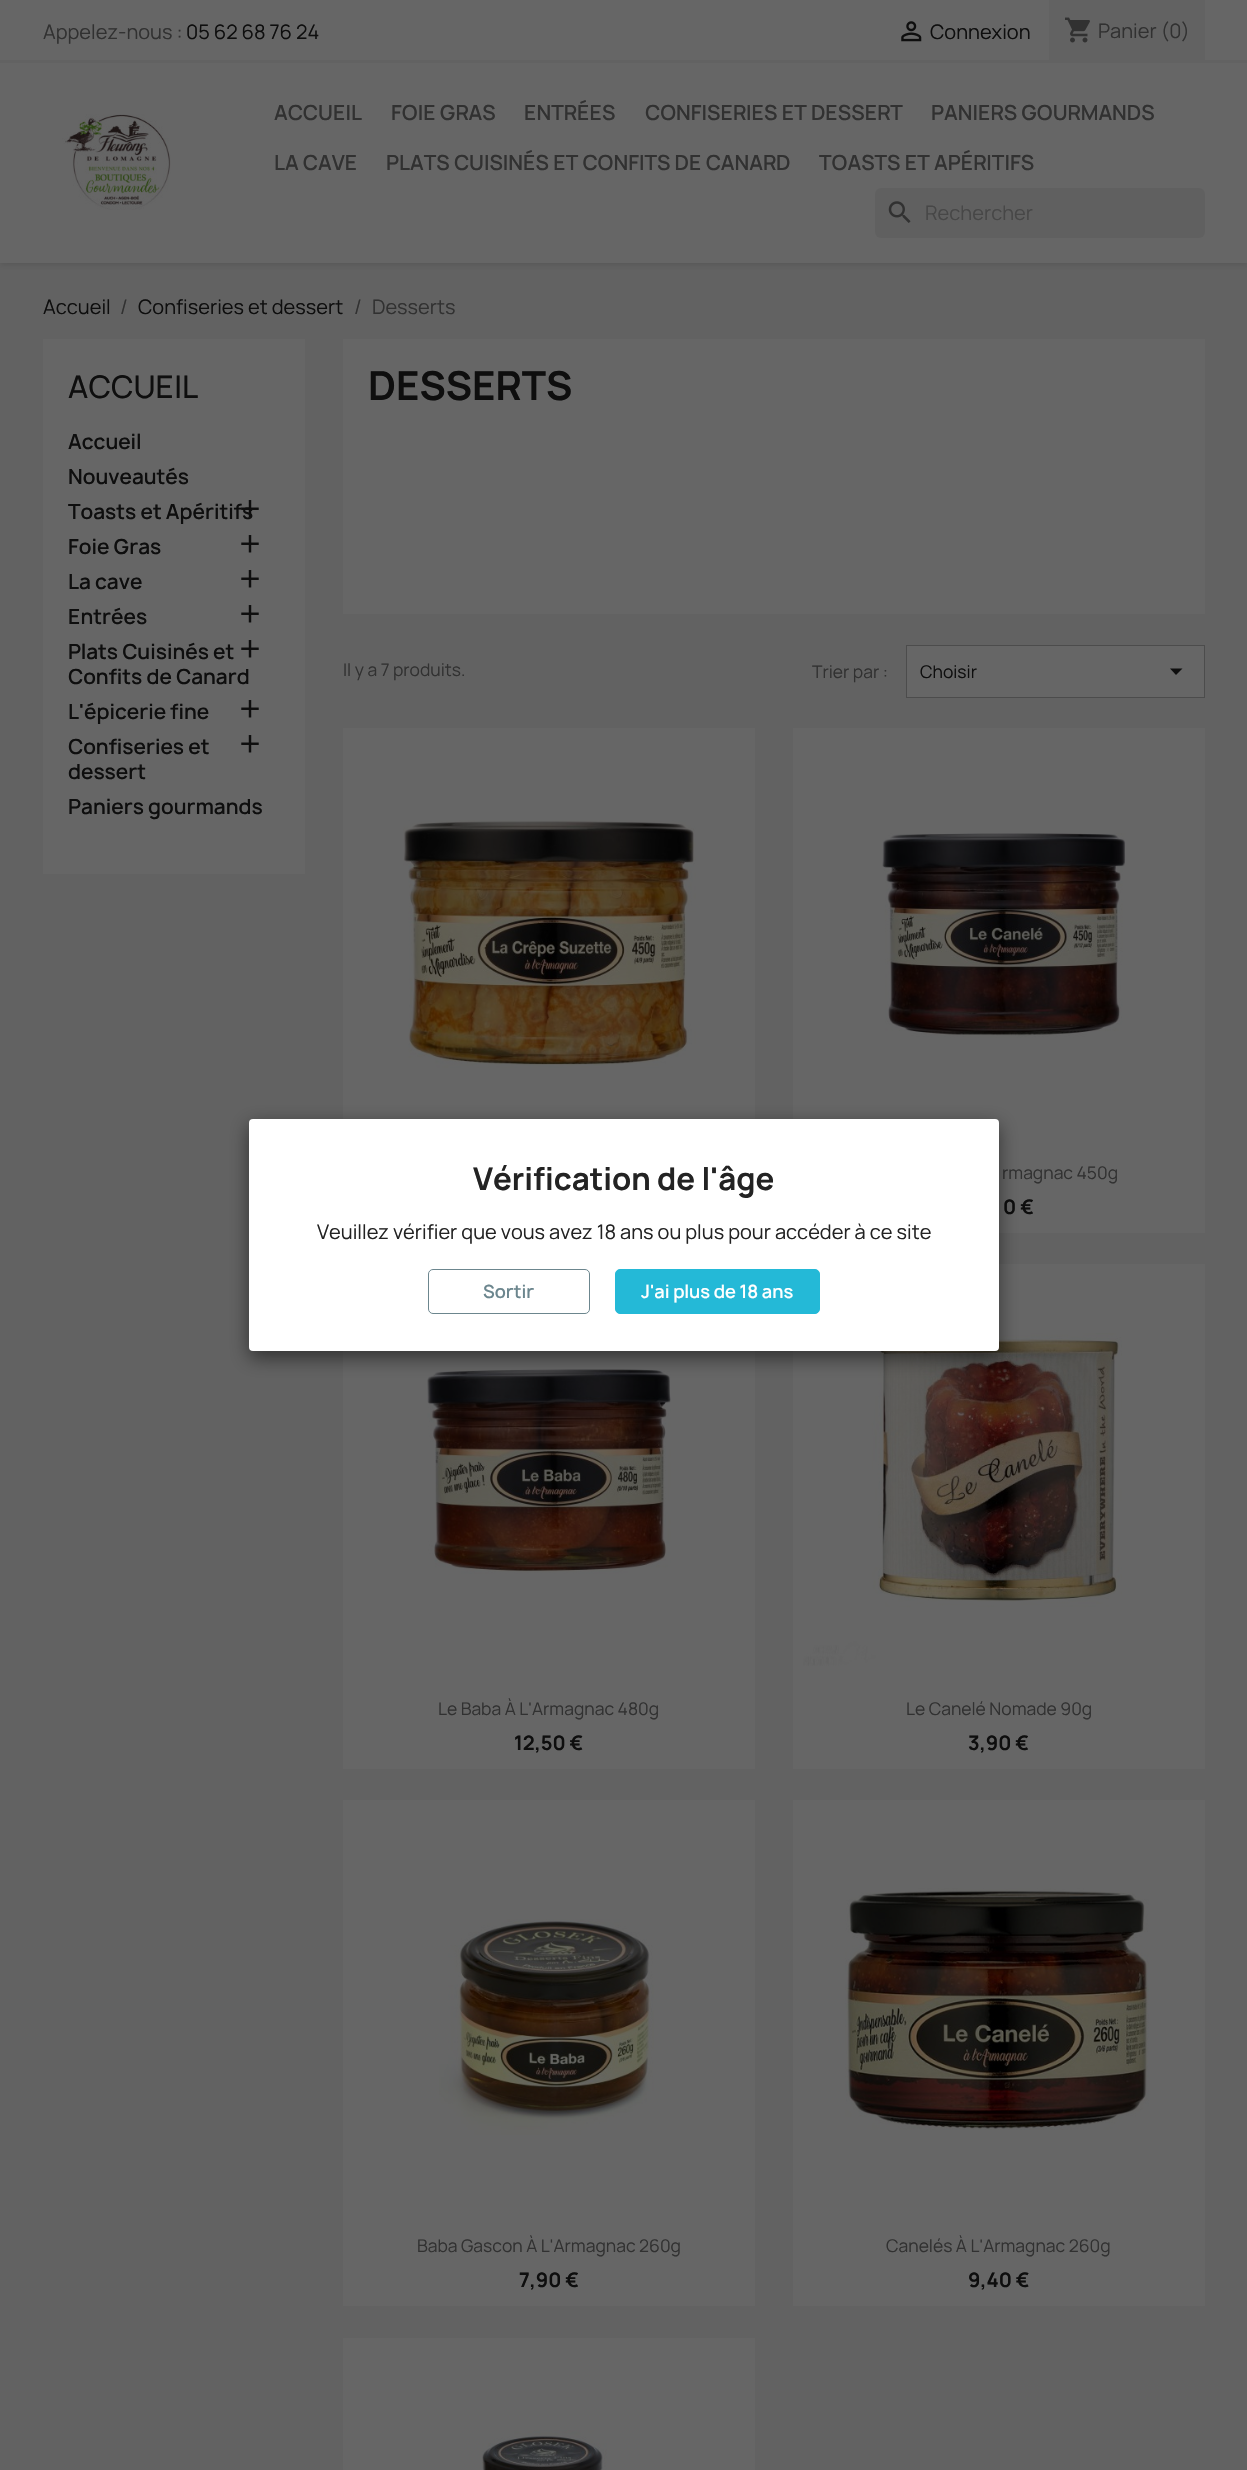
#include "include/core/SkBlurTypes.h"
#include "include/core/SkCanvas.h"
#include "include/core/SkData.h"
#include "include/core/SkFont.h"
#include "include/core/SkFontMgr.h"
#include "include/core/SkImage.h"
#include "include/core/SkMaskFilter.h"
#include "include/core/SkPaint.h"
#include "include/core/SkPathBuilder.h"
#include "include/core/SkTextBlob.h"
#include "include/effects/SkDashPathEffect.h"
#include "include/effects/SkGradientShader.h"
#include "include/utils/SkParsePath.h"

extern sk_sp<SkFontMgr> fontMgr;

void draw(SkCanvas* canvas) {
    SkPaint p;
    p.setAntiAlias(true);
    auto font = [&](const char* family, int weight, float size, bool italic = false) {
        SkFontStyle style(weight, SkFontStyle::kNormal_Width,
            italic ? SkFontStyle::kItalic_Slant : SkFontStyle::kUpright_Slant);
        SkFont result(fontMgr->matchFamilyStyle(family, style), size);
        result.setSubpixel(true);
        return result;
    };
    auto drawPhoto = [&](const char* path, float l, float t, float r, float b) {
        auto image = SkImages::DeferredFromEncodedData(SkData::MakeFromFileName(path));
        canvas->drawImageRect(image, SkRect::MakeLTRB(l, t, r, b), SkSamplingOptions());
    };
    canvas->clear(0xFF626262);
    p.setColor(0x1C000000);
    p.setMaskFilter(SkMaskFilter::MakeBlur(kNormal_SkBlurStyle, 3));
    canvas->drawRect(SkRect::MakeLTRB(0, 3, 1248, 265), p);
    p.setMaskFilter(nullptr);
    p.setColor(0xFF666666);
    canvas->drawRect(SkRect::MakeLTRB(0, 0, 1247, 263), p);
    p.setColor(0xFF626262);
    canvas->drawRect(SkRect::MakeLTRB(0, 60, 1247, 63), p);
    auto font1 = font("Manrope", 400, 20);
    p.setColor(0xFF313131);
    canvas->drawString("Appelez-nous :", 43, 39, font1, p);
    p.setColor(0xFF0E0E0E);
    canvas->drawString("05 62 68 76 24", 186, 39, font1, p);
    drawPhoto("media/1.png", 901, 21, 922, 42);
    canvas->drawString("Connexion", 930, 39, font1, p);
    p.setColor(0xFF626262);
    canvas->drawRect(SkRect::MakeLTRB(1049, 0, 1205, 60), p);
    drawPhoto("media/2.png", 1065, 17, 1090, 43);
    p.setColor(0xFF313131);
    canvas->drawString("Panier (0)", 1098, 38, font1, p);
    drawPhoto("media/3.png", 62, 114, 171, 210);
    auto font2 = font("Manrope", 600, 20);
    {
        const struct { const char* s; float x, y; } items[] = {
            {"ACCUEIL", 274, 120},
            {"FOIE GRAS", 391, 120},
            {"ENTRÉES", 524, 120},
            {"CONFISERIES ET DESSERT", 645, 120},
            {"PANIERS GOURMANDS", 931, 120},
            {"LA CAVE", 274, 170},
            {"PLATS CUISINÉS ET CONFITS DE CANARD", 386, 170},
            {"TOASTS ET APÉRITIFS", 819, 170},
        };
        for (auto [s, x, y] : items) {
            canvas->drawString(s, x, y, font2, p);
        }
    }
    p.setColor(0xFF606060);
    canvas->drawRoundRect(SkRect::MakeLTRB(875, 188, 1205, 238), 6, 6, p);
    drawPhoto("media/4.png", 888, 201, 911, 223);
    p.setColor(0xFF474747);
    canvas->drawString("Rechercher", 925, 220, font1, p);
    p.setColor(0xFF0E0E0E);
    canvas->drawString("Accueil", 43, 314, font1, p);
    p.setColor(0xFF313131);
    canvas->drawString("/", 120, 314, font1, p);
    p.setColor(0xFF0E0E0E);
    canvas->drawString("Confiseries et dessert", 138, 314, font1, p);
    p.setColor(0xFF313131);
    canvas->drawString("/", 354, 314, font1, p);
    canvas->drawString("Desserts", 372, 314, font1, p);
    p.setColor(0xFF666666);
    canvas->drawRect(SkRect::MakeLTRB(43, 339, 305, 874), p);
    auto font3 = font("Manrope", 500, 30);
    p.setColor(0xFF0E0E0E);
    canvas->drawString("ACCUEIL", 68, 398, font3, p);
    {
        const struct { const char* s; float x, y; } items[] = {
            {"Accueil", 68, 449},
            {"Nouveautés", 68, 484},
            {"Toasts et Apéritifs", 68, 519},
        };
        for (auto [s, x, y] : items) {
            canvas->drawString(s, x, y, font2, p);
        }
    }
    drawPhoto("media/5.png", 241, 500, 259, 518);
    canvas->drawString("Foie Gras", 68, 554, font2, p);
    drawPhoto("media/6.png", 241, 535, 259, 553);
    canvas->drawString("La cave", 68, 589, font2, p);
    drawPhoto("media/6.png", 241, 570, 259, 588);
    canvas->drawString("Entrées", 68, 624, font2, p);
    drawPhoto("media/6.png", 241, 605, 259, 623);
    canvas->drawString("Plats Cuisinés et", 68, 659, font2, p);
    canvas->drawString("Confits de Canard", 68, 684, font2, p);
    drawPhoto("media/6.png", 241, 640, 259, 658);
    canvas->drawString("L'épicerie fine", 68, 719, font2, p);
    drawPhoto("media/6.png", 241, 700, 259, 718);
    canvas->drawString("Confiseries et", 68, 754, font2, p);
    canvas->drawString("dessert", 68, 779, font2, p);
    drawPhoto("media/6.png", 241, 735, 259, 753);
    canvas->drawString("Paniers gourmands", 68, 814, font2, p);
    p.setColor(0xFF666666);
    canvas->drawRect(SkRect::MakeLTRB(343, 339, 1205, 614), p);
    auto font4 = font("Manrope", 700, 40);
    p.setColor(0xFF0E0E0E);
    canvas->drawString("DESSERTS", 368, 400, font4, p);
    auto font5 = font("Manrope", 400, 17.5f);
    p.setColor(0xFF313131);
    canvas->drawString("Il y a 7 produits.", 343, 676, font5, p);
    canvas->drawString("Trier par :", 812, 678, font5, p);
    p.setColor(0xFF666666);
    canvas->drawRect(SkRect::MakeLTRB(906.5f, 645.5f, 1204.5f, 697.5f), p);
    p.setStyle(SkPaint::kStroke_Style);
    p.setStrokeWidth(1);
    p.setColor(0xFF4C4C4C);
    canvas->drawRect(SkRect::MakeLTRB(906.5f, 645.5f, 1204.5f, 697.5f), p);
    p.setStyle(SkPaint::kFill_Style);
    p.setColor(0xFF0E0E0E);
    canvas->drawString("Choisir", 920, 678, font5, p);
    canvas->drawPath(SkPathBuilder().moveTo(1170, 668.5f).lineTo(1182.5f, 668.5f).lineTo(1176, 675).close().detach(), p);
    p.setColor(0xFF666666);
    canvas->drawRect(SkRect::MakeLTRB(343, 728, 755, 1119), p);
    drawPhoto("media/7.png", 403, 820, 696, 1068);
    canvas->drawRect(SkRect::MakeLTRB(793, 728, 1205, 1233), p);
    drawPhoto("media/8.png", 882, 833, 1126, 1038);
    p.setColor(0xFF313131);
    canvas->drawString("rmagnac 450g", 1002, 1179, font5, p);
    auto font6 = font("Manrope", 700, 20);
    p.setColor(0xFF0E0E0E);
    canvas->drawString("0 €", 1003, 1214, font6, p);
    p.setColor(0xFF666666);
    canvas->drawRect(SkRect::MakeLTRB(343, 1351, 755, 1769), p);
    drawPhoto("media/9.png", 427, 1369, 671, 1574);
    p.setColor(0xFF313131);
    canvas->drawString("Le Baba À L'Armagnac 480g", 438, 1715, font5, p);
    p.setColor(0xFF0E0E0E);
    canvas->drawString("12,50 €", 514, 1750, font6, p);
    p.setColor(0xFF666666);
    canvas->drawRect(SkRect::MakeLTRB(793, 1264, 1205, 1769), p);
    drawPhoto("media/10.png", 803, 1333, 1122, 1666);
    p.setColor(0xFF313131);
    canvas->drawString("Le Canelé Nomade 90g", 906, 1715, font5, p);
    p.setColor(0xFF0E0E0E);
    canvas->drawString("3,90 €", 968, 1750, font6, p);
    p.setColor(0xFF666666);
    canvas->drawRect(SkRect::MakeLTRB(343, 1800, 755, 2306), p);
    drawPhoto("media/11.png", 439, 1919, 654, 2135);
    p.setColor(0xFF313131);
    canvas->drawString("Baba Gascon À L'Armagnac 260g", 417, 2252, font5, p);
    p.setColor(0xFF0E0E0E);
    canvas->drawString("7,90 €", 519, 2287, font6, p);
    p.setColor(0xFF666666);
    canvas->drawRect(SkRect::MakeLTRB(793, 1800, 1205, 2306), p);
    drawPhoto("media/12.png", 845, 1888, 1149, 2130);
    p.setColor(0xFF313131);
    canvas->drawString("Canelés À L'Armagnac 260g", 886, 2252, font5, p);
    p.setColor(0xFF0E0E0E);
    canvas->drawString("9,40 €", 968, 2287, font6, p);
    p.setColor(0xFF666666);
    canvas->drawRect(SkRect::MakeLTRB(343, 2338, 755, 2470), p);
    drawPhoto("media/13.png", 482, 2430, 607, 2470);
    p.setColor(0x80000000);
    p.setMaskFilter(SkMaskFilter::MakeBlur(kNormal_SkBlurStyle, 9.5f));
    canvas->drawRoundRect(SkRect::MakeLTRB(249, 1125, 999, 1358), 4, 4, p);
    p.setMaskFilter(nullptr);
    p.setColor(0xFFFFFFFF);
    canvas->drawRoundRect(SkRect::MakeLTRB(249, 1119, 999, 1351), 4, 4, p);
    auto font7 = font("Manrope", 700, 31.25f);
    p.setColor(0xFF232323);
    canvas->drawString("Vérification de l'âge", 473, 1190, font7, p);
    canvas->drawString("Veuillez vérifier que vous avez 18 ans ou plus pour accéder à ce site", 317, 1239, font1, p);
    p.setStyle(SkPaint::kStroke_Style);
    p.setColor(0xFF6C868E);
    canvas->drawRoundRect(SkRect::MakeLTRB(428.5f, 1269.5f, 589.5f, 1313.5f), 4.5f, 4.5f, p);
    auto font8 = font("Manrope", 600, 17.5f);
    p.setStyle(SkPaint::kFill_Style);
    canvas->drawString("Sortir", 483, 1298, font8, p);
    p.setColor(0xFF24B9D7);
    canvas->drawRoundRect(SkRect::MakeLTRB(615.5f, 1269.5f, 819.5f, 1313.5f), 4.5f, 4.5f, p);
    p.setStyle(SkPaint::kStroke_Style);
    canvas->drawRoundRect(SkRect::MakeLTRB(615.5f, 1269.5f, 819.5f, 1313.5f), 4.5f, 4.5f, p);
    p.setStyle(SkPaint::kFill_Style);
    p.setColor(0xFFFFFFFF);
    canvas->drawString("J'ai plus de 18 ans", 641, 1298, font8, p);
}
